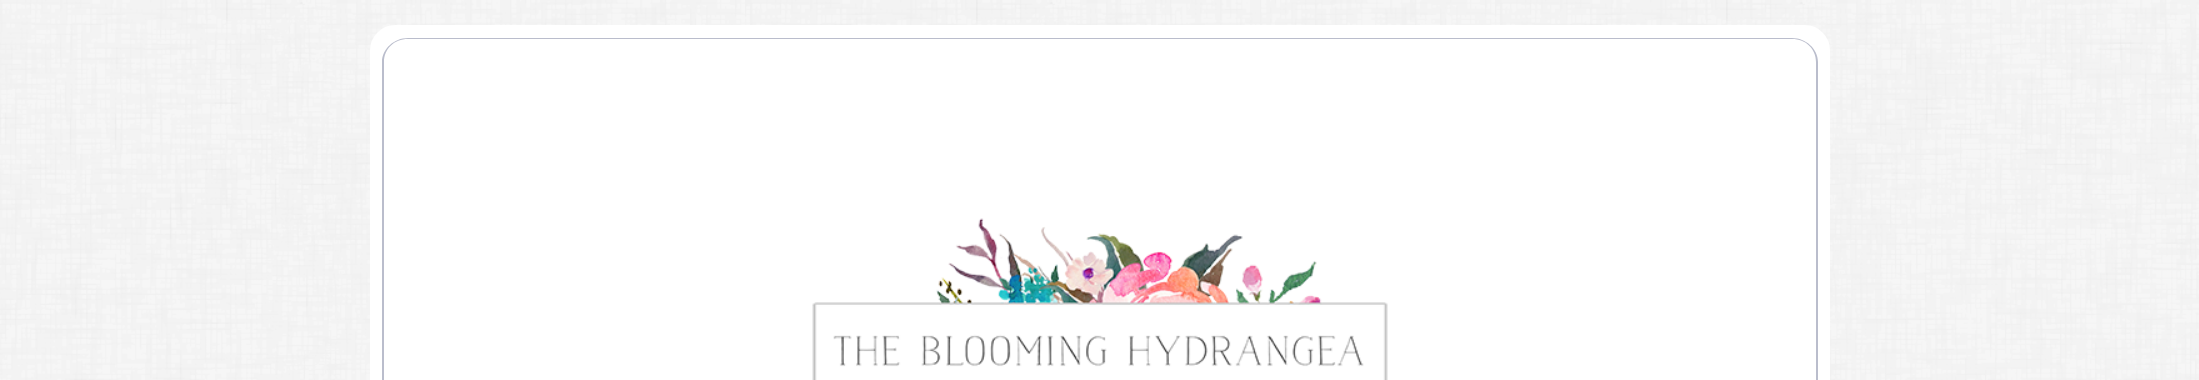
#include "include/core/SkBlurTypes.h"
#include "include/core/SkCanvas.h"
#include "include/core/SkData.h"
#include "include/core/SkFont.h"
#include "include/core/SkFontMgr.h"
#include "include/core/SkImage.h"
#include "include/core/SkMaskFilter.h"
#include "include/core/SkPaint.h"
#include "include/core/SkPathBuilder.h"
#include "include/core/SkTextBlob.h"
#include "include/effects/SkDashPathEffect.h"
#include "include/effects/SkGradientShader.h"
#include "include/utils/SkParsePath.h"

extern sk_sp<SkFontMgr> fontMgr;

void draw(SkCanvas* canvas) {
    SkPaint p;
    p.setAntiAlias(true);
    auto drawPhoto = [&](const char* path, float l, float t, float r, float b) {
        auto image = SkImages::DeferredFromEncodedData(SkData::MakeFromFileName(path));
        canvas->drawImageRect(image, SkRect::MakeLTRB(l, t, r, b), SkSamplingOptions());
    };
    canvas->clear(0xFFFFFFFF);
    drawPhoto("media/1.png", 0, 0, 2199, 380);
    p.setColor(0xFFFFFFFF);
    canvas->drawPath(SkPathBuilder().moveTo(395, 31.5f).lineTo(1805, 31.5f).cubicTo(1815, 31.5f, 1823.5f, 40, 1823.5f, 50).lineTo(1823.5f, 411.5f).lineTo(376.5f, 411.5f).lineTo(376.5f, 50).cubicTo(376.5f, 40, 385, 31.5f, 395, 31.5f).close().detach(), p);
    p.setStyle(SkPaint::kStroke_Style);
    p.setStrokeWidth(13);
    canvas->drawPath(SkPathBuilder().moveTo(395, 31.5f).lineTo(1805, 31.5f).cubicTo(1815, 31.5f, 1823.5f, 40, 1823.5f, 50).lineTo(1823.5f, 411.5f).lineTo(376.5f, 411.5f).lineTo(376.5f, 50).cubicTo(376.5f, 40, 385, 31.5f, 395, 31.5f).close().detach(), p);
    drawPhoto("media/2.png", 812, 218, 1388, 380);
    p.setStyle(SkPaint::kFill_Style);
    p.setColor(0xFFBABDCC);
    canvas->drawPath(SkPathBuilder(SkPathFillType::kEvenOdd).moveTo(408, 38).lineTo(1792, 38).cubicTo(1806, 38, 1818, 49, 1818, 62).lineTo(1818, 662).lineTo(382, 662).lineTo(382, 62).cubicTo(382, 49, 394, 38, 408, 38).close().moveTo(408, 39).lineTo(1792, 39).cubicTo(1806, 39, 1816, 49, 1816, 62).lineTo(1816, 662).lineTo(384, 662).lineTo(384, 62).cubicTo(384, 49, 394, 39, 408, 39).close().detach(), p);
}
